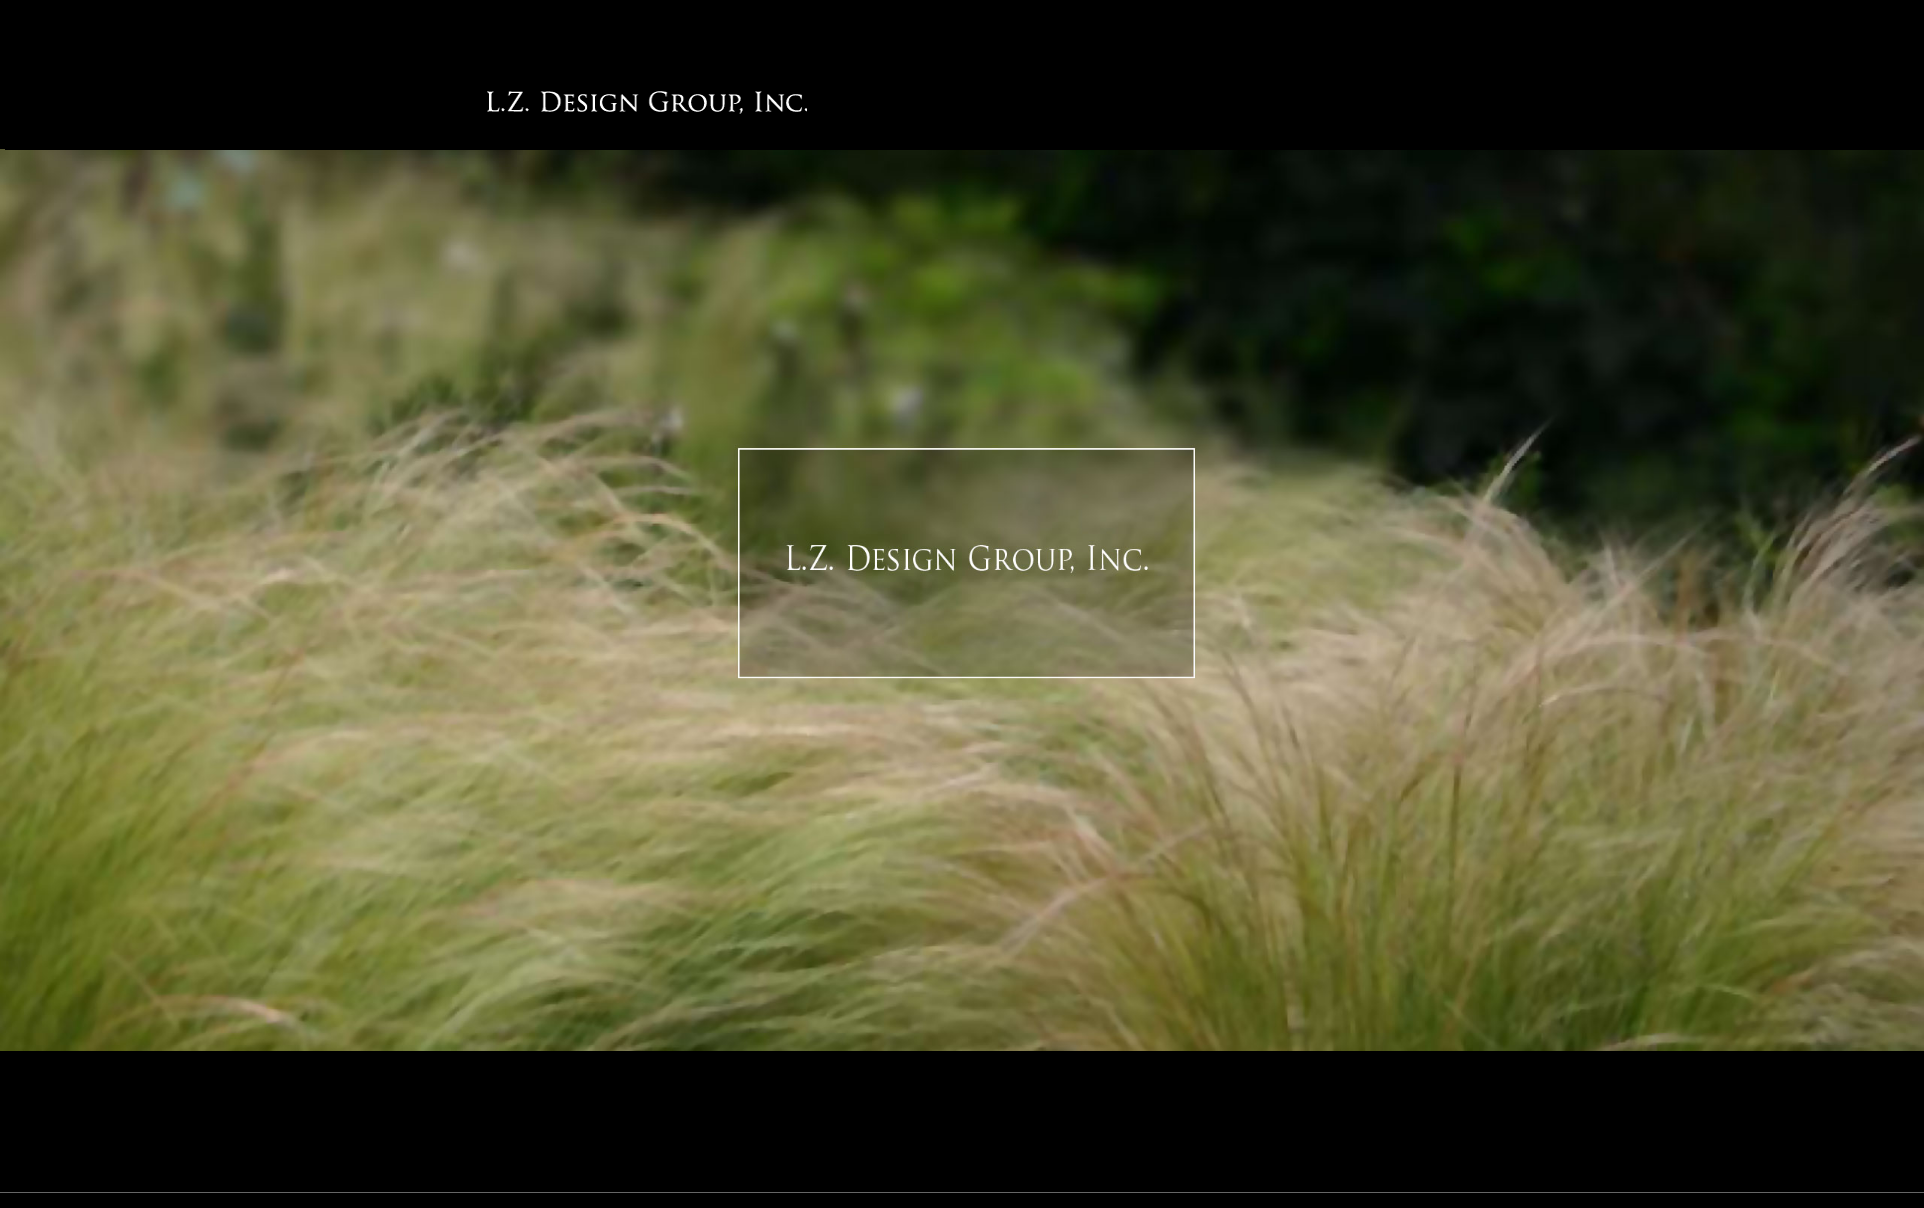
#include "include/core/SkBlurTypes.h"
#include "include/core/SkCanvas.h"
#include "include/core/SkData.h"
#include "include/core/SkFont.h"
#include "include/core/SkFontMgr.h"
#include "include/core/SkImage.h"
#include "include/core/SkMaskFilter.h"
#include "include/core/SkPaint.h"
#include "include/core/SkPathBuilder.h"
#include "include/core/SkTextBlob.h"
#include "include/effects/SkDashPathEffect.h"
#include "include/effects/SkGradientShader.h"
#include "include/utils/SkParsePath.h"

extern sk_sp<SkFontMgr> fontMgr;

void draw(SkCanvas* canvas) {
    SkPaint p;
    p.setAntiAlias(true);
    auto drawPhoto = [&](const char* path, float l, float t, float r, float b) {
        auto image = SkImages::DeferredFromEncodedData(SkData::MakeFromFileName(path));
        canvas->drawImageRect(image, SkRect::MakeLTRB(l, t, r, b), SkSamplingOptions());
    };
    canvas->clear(0xFF000000);
    drawPhoto("media/2.png", 0, 149, 1924, 1051);
    p.setColor(0xFF000000);
    canvas->drawRect(SkRect::MakeLTRB(5, 149, 1924, 150), p);
    drawPhoto("media/1.png", 487, 91, 807, 114);
    p.setColor(0xFF666666);
    canvas->drawRect(SkRect::MakeLTRB(0, 1192, 1924, 1193), p);
}
